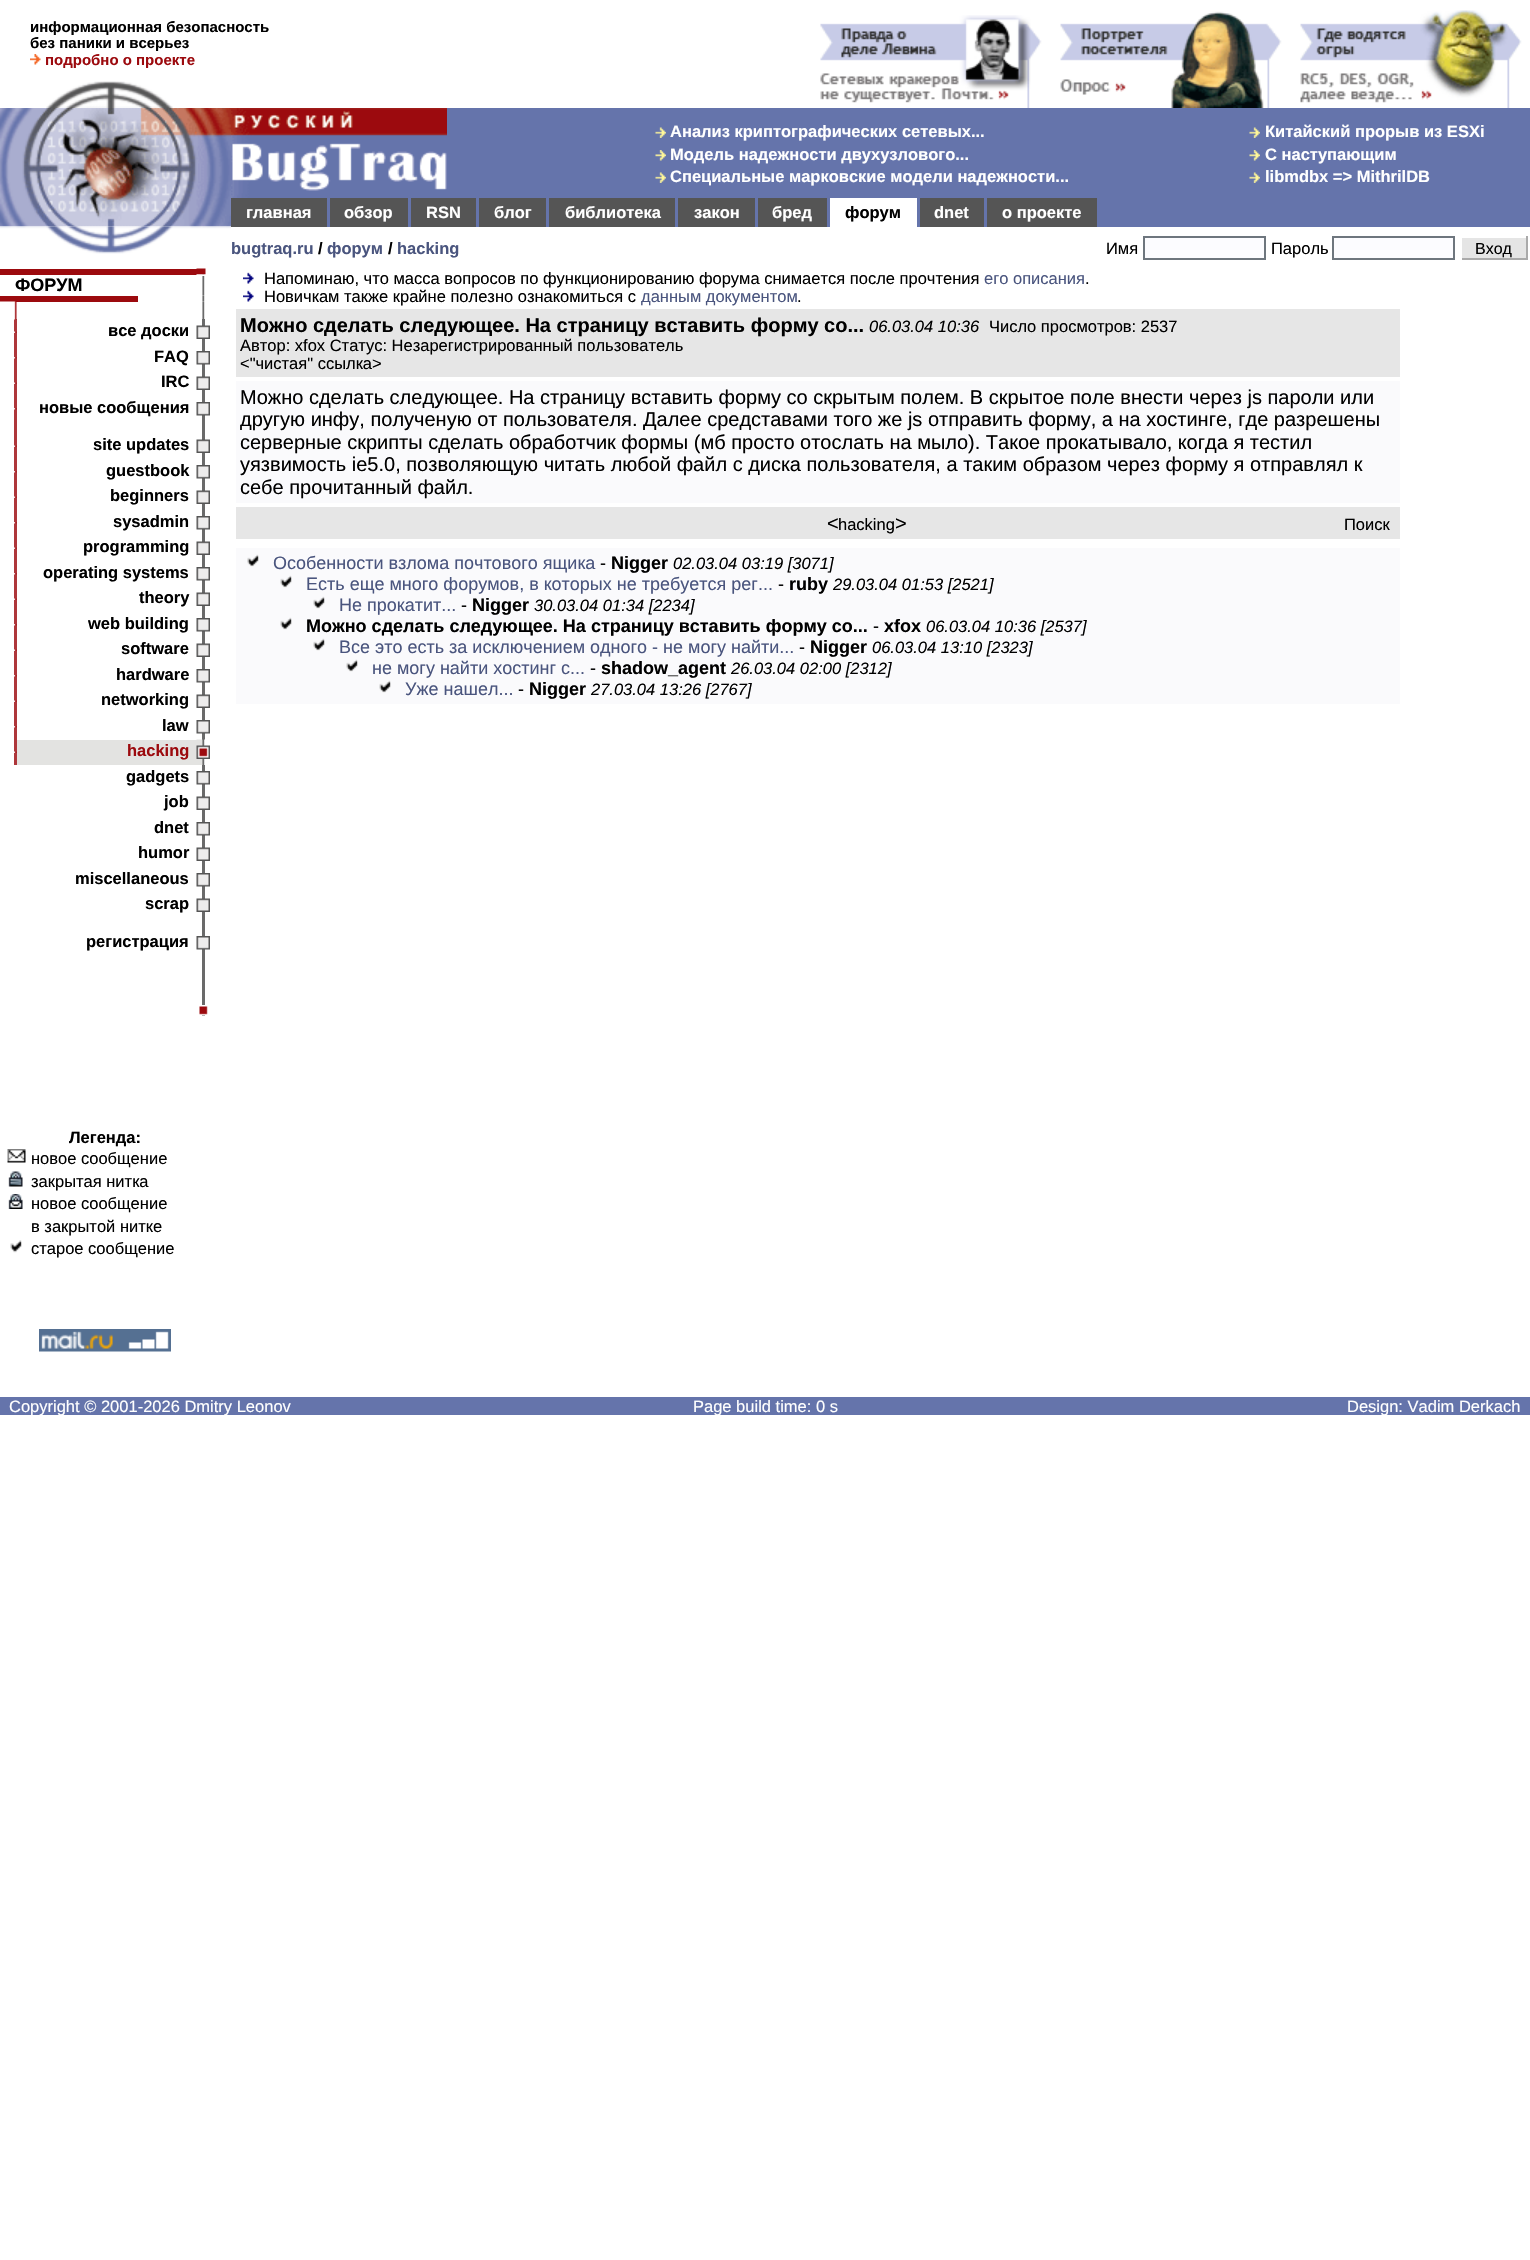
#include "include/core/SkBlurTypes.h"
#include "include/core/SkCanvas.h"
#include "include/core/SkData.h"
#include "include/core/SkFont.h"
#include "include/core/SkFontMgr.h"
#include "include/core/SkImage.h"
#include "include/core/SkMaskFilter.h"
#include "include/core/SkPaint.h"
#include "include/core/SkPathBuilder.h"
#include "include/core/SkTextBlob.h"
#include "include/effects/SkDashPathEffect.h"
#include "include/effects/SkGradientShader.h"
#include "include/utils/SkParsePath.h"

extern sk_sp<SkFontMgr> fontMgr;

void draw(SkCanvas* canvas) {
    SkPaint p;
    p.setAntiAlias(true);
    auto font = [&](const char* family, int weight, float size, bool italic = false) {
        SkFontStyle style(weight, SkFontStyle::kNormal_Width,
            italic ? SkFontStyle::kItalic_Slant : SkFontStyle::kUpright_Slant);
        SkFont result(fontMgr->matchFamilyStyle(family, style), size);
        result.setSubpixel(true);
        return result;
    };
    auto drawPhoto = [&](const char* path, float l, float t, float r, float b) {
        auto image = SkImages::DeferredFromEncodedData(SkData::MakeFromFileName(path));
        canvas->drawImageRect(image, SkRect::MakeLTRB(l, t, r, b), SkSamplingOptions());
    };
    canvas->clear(0xFFFFFFFF);
    auto font1 = font("Liberation Sans", 700, 15);
    p.setColor(0xFF000000);
    canvas->drawString("информационная безопасность", 30, 32, font1, p);
    canvas->drawString("без паники и всерьез", 30, 48, font1, p);
    drawPhoto("media/1.png", 30, 54, 41, 65);
    p.setColor(0xFF9C0A0E);
    canvas->drawString("подробно о проекте", 45, 65, font1, p);
    drawPhoto("media/2.png", 820, 15, 1042, 108);
    drawPhoto("media/3.png", 1060, 11, 1282, 108);
    drawPhoto("media/4.png", 1300, 10, 1522, 108);
    drawPhoto("media/5.png", 46, 81, 173, 108);
    p.setColor(0xFF6574AB);
    canvas->drawRect(SkRect::MakeLTRB(447, 108, 1530, 198), p);
    drawPhoto("media/6.png", 0, 108, 231, 227);
    drawPhoto("media/7.png", 0, 226, 231, 254);
    drawPhoto("media/8.png", 231, 108, 447, 198);
    drawPhoto("media/9.png", 655, 127, 666, 138);
    auto font2 = font("Liberation Sans", 700, 16.5f);
    p.setColor(0xFFFFFFFF);
    canvas->drawString("Анализ криптографических сетевых...", 670, 137, font2, p);
    drawPhoto("media/10.png", 655, 150, 666, 161);
    canvas->drawString("Модель надежности двухузлового...", 670, 160, font2, p);
    drawPhoto("media/9.png", 655, 172, 666, 183);
    canvas->drawString("Специальные марковские модели надежности...", 670, 182, font2, p);
    drawPhoto("media/11.png", 1249, 127, 1260, 138);
    canvas->drawString("Китайский прорыв из ESXi", 1265, 137, font2, p);
    drawPhoto("media/12.png", 1249, 150, 1260, 161);
    canvas->drawString("С наступающим", 1265, 160, font2, p);
    drawPhoto("media/11.png", 1249, 172, 1260, 183);
    canvas->drawString("libmdbx => MithrilDB", 1265, 182, font2, p);
    p.setColor(0xFF6574AB);
    canvas->drawRect(SkRect::MakeLTRB(327, 198, 1530, 227), p);
    p.setColor(0xFF555555);
    canvas->drawRect(SkRect::MakeLTRB(231, 198, 327, 227), p);
    p.setColor(0xFFFFFFFF);
    canvas->drawString("главная", 246, 218, font2, p);
    p.setColor(0xFF555555);
    canvas->drawRect(SkRect::MakeLTRB(330, 198, 408, 227), p);
    p.setColor(0xFFFFFFFF);
    canvas->drawString("обзор", 344, 218, font2, p);
    p.setColor(0xFF555555);
    canvas->drawRect(SkRect::MakeLTRB(411, 198, 476, 227), p);
    p.setColor(0xFFFFFFFF);
    canvas->drawString("RSN", 426, 218, font2, p);
    p.setColor(0xFF555555);
    canvas->drawRect(SkRect::MakeLTRB(479, 198, 546, 227), p);
    p.setColor(0xFFFFFFFF);
    canvas->drawString("блог", 494, 218, font2, p);
    p.setColor(0xFF555555);
    canvas->drawRect(SkRect::MakeLTRB(549, 198, 675, 227), p);
    p.setColor(0xFFFFFFFF);
    canvas->drawString("библиотека", 565, 218, font2, p);
    p.setColor(0xFF555555);
    canvas->drawRect(SkRect::MakeLTRB(678, 198, 755, 227), p);
    p.setColor(0xFFFFFFFF);
    canvas->drawString("закон", 694, 218, font2, p);
    p.setColor(0xFF555555);
    canvas->drawRect(SkRect::MakeLTRB(758, 198, 827, 227), p);
    p.setColor(0xFFFFFFFF);
    canvas->drawString("бред", 772, 218, font2, p);
    canvas->drawRect(SkRect::MakeLTRB(830, 198, 917, 227), p);
    p.setColor(0xFF000000);
    canvas->drawString("форум", 845, 218, font2, p);
    p.setColor(0xFF555555);
    canvas->drawRect(SkRect::MakeLTRB(920, 198, 984, 227), p);
    p.setColor(0xFFFFFFFF);
    canvas->drawString("dnet", 934, 218, font2, p);
    p.setColor(0xFF555555);
    canvas->drawRect(SkRect::MakeLTRB(987, 198, 1097, 227), p);
    p.setColor(0xFFFFFFFF);
    canvas->drawString("о проекте", 1002, 218, font2, p);
    p.setColor(0xFF4A557E);
    canvas->drawString("bugtraq.ru", 231, 254, font2, p);
    p.setColor(0xFF000000);
    canvas->drawString("/", 318, 254, font2, p);
    p.setColor(0xFF4A557E);
    canvas->drawString("форум", 327, 254, font2, p);
    p.setColor(0xFF000000);
    canvas->drawString("/", 388, 254, font2, p);
    p.setColor(0xFF4A557E);
    canvas->drawString("hacking", 397, 254, font2, p);
    auto font3 = font("Liberation Sans", 400, 16.5f);
    p.setColor(0xFF000000);
    canvas->drawString("Имя", 1106, 254, font3, p);
    p.setColor(0xFFFCFCFF);
    canvas->drawRect(SkRect::MakeLTRB(1144, 237, 1265, 259), p);
    p.setStyle(SkPaint::kStroke_Style);
    p.setStrokeWidth(2);
    p.setColor(0xFF6E767E);
    canvas->drawRect(SkRect::MakeLTRB(1144, 237, 1265, 259), p);
    p.setStyle(SkPaint::kFill_Style);
    p.setColor(0xFF000000);
    canvas->drawString("Пароль", 1271, 254, font3, p);
    p.setColor(0xFFFCFCFF);
    canvas->drawRect(SkRect::MakeLTRB(1333, 237, 1454, 259), p);
    p.setStyle(SkPaint::kStroke_Style);
    p.setColor(0xFF6E767E);
    canvas->drawRect(SkRect::MakeLTRB(1333, 237, 1454, 259), p);
    p.setStyle(SkPaint::kFill_Style);
    {
        const struct { float l, t, r, b; SkColor color; } items[] = {
            {1462, 238, 1526, 258, 0xFFE5E5E5},
            {1526, 236, 1528, 260, 0xFFAAAAAA},
            {1460, 258, 1527, 260, 0xFFAAAAAA},
            {1460, 258, 1462, 260, 0xFFFFFFFF},
        };
        for (auto [l, t, r, b, color] : items) {
            p.setColor(color);
            canvas->drawRect(SkRect::MakeLTRB(l, t, r, b), p);
        }
    }
    auto font4 = font("Liberation Sans", 400, 16);
    p.setColor(0xFF000000);
    canvas->drawString("Вход", 1475, 254, font4, p);
    p.setColor(0xFF9C0A0E);
    canvas->drawRect(SkRect::MakeLTRB(0, 269, 197, 275), p);
    drawPhoto("media/14.png", 196, 274, 210, 296);
    drawPhoto("media/13.png", 196, 268, 210, 275);
    auto font5 = font("Liberation Sans", 700, 18);
    p.setColor(0xFF000000);
    canvas->drawString("ФОРУМ", 15, 291, font5, p);
    drawPhoto("media/15.png", 196, 274, 210, 276);
    p.setColor(0xFF9C0A0E);
    canvas->drawRect(SkRect::MakeLTRB(0, 296, 138, 302), p);
    drawPhoto("media/16.png", 196, 295, 205, 302);
    p.setColor(0xFFAE373B);
    canvas->drawRect(SkRect::MakeLTRB(14, 319, 17, 422), p);
    drawPhoto("media/17.png", 0, 301, 17, 320);
    drawPhoto("media/18.png", 196, 301, 205, 320);
    drawPhoto("media/19.png", 14, 331, 17, 333);
    p.setColor(0xFF000000);
    canvas->drawString("все доски", 108, 336, font2, p);
    p.setColor(0xFF6A6A6A);
    canvas->drawRect(SkRect::MakeLTRB(202, 319, 205, 740), p);
    drawPhoto("media/20.png", 196, 325, 210, 339);
    drawPhoto("media/21.png", 14, 357, 17, 359);
    p.setColor(0xFF000000);
    canvas->drawString("FAQ", 154, 362, font2, p);
    drawPhoto("media/22.png", 196, 351, 210, 365);
    drawPhoto("media/19.png", 14, 382, 17, 384);
    canvas->drawString("IRC", 161, 387, font2, p);
    drawPhoto("media/20.png", 196, 376, 210, 390);
    drawPhoto("media/21.png", 14, 408, 17, 410);
    canvas->drawString("новые сообщения", 39, 413, font2, p);
    drawPhoto("media/22.png", 196, 402, 210, 416);
    p.setColor(0xFFAE373B);
    canvas->drawRect(SkRect::MakeLTRB(14, 421, 17, 765), p);
    drawPhoto("media/19.png", 14, 445, 17, 447);
    p.setColor(0xFF000000);
    canvas->drawString("site updates", 93, 450, font2, p);
    drawPhoto("media/20.png", 196, 439, 210, 453);
    drawPhoto("media/21.png", 14, 471, 17, 473);
    canvas->drawString("guestbook", 106, 476, font2, p);
    drawPhoto("media/22.png", 196, 465, 210, 479);
    drawPhoto("media/19.png", 14, 496, 17, 498);
    canvas->drawString("beginners", 110, 501, font2, p);
    drawPhoto("media/20.png", 196, 490, 210, 504);
    drawPhoto("media/21.png", 14, 522, 17, 524);
    canvas->drawString("sysadmin", 113, 527, font2, p);
    drawPhoto("media/22.png", 196, 516, 210, 530);
    drawPhoto("media/19.png", 14, 547, 17, 549);
    canvas->drawString("programming", 83, 552, font2, p);
    drawPhoto("media/20.png", 196, 541, 210, 555);
    drawPhoto("media/21.png", 14, 573, 17, 575);
    canvas->drawString("operating systems", 43, 578, font2, p);
    drawPhoto("media/22.png", 196, 567, 210, 581);
    drawPhoto("media/19.png", 14, 598, 17, 600);
    canvas->drawString("theory", 139, 603, font2, p);
    drawPhoto("media/20.png", 196, 592, 210, 606);
    drawPhoto("media/21.png", 14, 624, 17, 626);
    canvas->drawString("web building", 88, 629, font2, p);
    drawPhoto("media/22.png", 196, 618, 210, 632);
    drawPhoto("media/19.png", 14, 649, 17, 651);
    canvas->drawString("software", 121, 654, font2, p);
    drawPhoto("media/20.png", 196, 643, 210, 657);
    drawPhoto("media/21.png", 14, 675, 17, 677);
    canvas->drawString("hardware", 116, 680, font2, p);
    drawPhoto("media/22.png", 196, 669, 210, 683);
    drawPhoto("media/19.png", 14, 700, 17, 702);
    canvas->drawString("networking", 101, 705, font2, p);
    drawPhoto("media/20.png", 196, 694, 210, 708);
    drawPhoto("media/21.png", 14, 726, 17, 728);
    canvas->drawString("law", 162, 731, font2, p);
    drawPhoto("media/22.png", 196, 720, 210, 734);
    drawPhoto("media/19.png", 14, 751, 17, 753);
    p.setColor(0xFFE3E3E1);
    canvas->drawRect(SkRect::MakeLTRB(17, 740, 197, 765), p);
    p.setColor(0xFF9C0A0E);
    canvas->drawString("hacking", 127, 756, font2, p);
    drawPhoto("media/23.png", 196, 739, 205, 765);
    drawPhoto("media/24.png", 196, 745, 210, 759);
    p.setColor(0xFF000000);
    canvas->drawString("gadgets", 126, 782, font2, p);
    p.setColor(0xFF6A6A6A);
    canvas->drawRect(SkRect::MakeLTRB(202, 765, 205, 1016), p);
    drawPhoto("media/22.png", 196, 771, 210, 785);
    p.setColor(0xFF000000);
    canvas->drawString("job", 164, 807, font2, p);
    drawPhoto("media/20.png", 196, 796, 210, 810);
    canvas->drawString("dnet", 154, 833, font2, p);
    drawPhoto("media/22.png", 196, 822, 210, 836);
    canvas->drawString("humor", 138, 858, font2, p);
    drawPhoto("media/20.png", 196, 847, 210, 861);
    canvas->drawString("miscellaneous", 75, 884, font2, p);
    drawPhoto("media/22.png", 196, 873, 210, 887);
    canvas->drawString("scrap", 145, 909, font2, p);
    drawPhoto("media/20.png", 196, 898, 210, 912);
    canvas->drawString("регистрация", 86, 947, font2, p);
    drawPhoto("media/22.png", 196, 936, 210, 950);
    drawPhoto("media/25.png", 199, 1005, 208, 1016);
    canvas->drawString("Легенда:", 69, 1143, font2, p);
    drawPhoto("media/26.png", 7, 1149, 26, 1163);
    canvas->drawString("новое сообщение", 31, 1164, font3, p);
    drawPhoto("media/27.png", 8, 1171, 23, 1187);
    canvas->drawString("закрытая нитка", 31, 1187, font3, p);
    drawPhoto("media/28.png", 8, 1194, 23, 1209);
    canvas->drawString("новое сообщение", 31, 1209, font3, p);
    canvas->drawString("в закрытой нитке", 31, 1232, font3, p);
    drawPhoto("media/29.png", 10, 1240, 22, 1253);
    canvas->drawString("старое сообщение", 31, 1254, font3, p);
    drawPhoto("media/30.png", 243, 272, 254, 284);
    canvas->drawString("Напоминаю, что масса вопросов по функционированию форума снимается после прочтения", 264, 284, font3, p);
    p.setColor(0xFF4A557E);
    canvas->drawString("его описания", 984, 284, font3, p);
    p.setColor(0xFF000000);
    canvas->drawString(".", 1085, 284, font3, p);
    drawPhoto("media/30.png", 243, 290, 254, 302);
    canvas->drawString("Новичкам также крайне полезно ознакомиться с", 264, 302, font3, p);
    p.setColor(0xFF4A557E);
    canvas->drawString("данным документом", 641, 302, font3, p);
    p.setColor(0xFF000000);
    canvas->drawString(".", 797, 302, font3, p);
    p.setColor(0xFFE6E6E6);
    canvas->drawRect(SkRect::MakeLTRB(236, 309, 1400, 377), p);
    auto font6 = font("Liberation Sans", 700, 20);
    p.setColor(0xFF000000);
    canvas->drawString("Можно сделать следующее. На страницу вставить форму со...", 240, 332, font6, p);
    auto font7 = font("Liberation Sans", 400, 16.5f, true);
    canvas->drawString("06.03.04 10:36", 869, 332, font7, p);
    {
        const struct { const char* s; float x, y; } items[] = {
            {"Число просмотров: 2537", 989, 332},
            {"Автор: xfox Статус: Незарегистрированный пользователь", 240, 351},
            {"<\"чистая\" ссылка>", 240, 369},
        };
        for (auto [s, x, y] : items) {
            canvas->drawString(s, x, y, font3, p);
        }
    }
    p.setColor(0xFFFAFAFC);
    canvas->drawRect(SkRect::MakeLTRB(236, 381, 1400, 503), p);
    auto font8 = font("Liberation Sans", 400, 20);
    p.setColor(0xFF000000);
    {
        const struct { const char* s; float x, y; } items[] = {
            {"Можно сделать следующее. На страницу вставить форму со скрытым полем. В скрытое поле внести через js пароли или", 240, 404},
            {"другую инфу, полученую от пользователя. Далее средставами того же js отправить форму, а на хостинге, где разрешены", 240, 426},
            {"серверные скрипты сделать обработчик формы (мб просто отослать на мыло). Такое прокатывало, когда я тестил", 240, 449},
            {"уязвимость ie5.0, позволяющую читать любой файл с диска пользователя, а таким образом через форму я отправлял к", 240, 471},
            {"себе прочитанный файл.", 240, 494},
        };
        for (auto [s, x, y] : items) {
            canvas->drawString(s, x, y, font8, p);
        }
    }
    p.setColor(0xFFE6E6E6);
    canvas->drawRect(SkRect::MakeLTRB(236, 507, 1400, 539), p);
    p.setColor(0xFF000000);
    canvas->drawString("<", 827, 530, font8, p);
    canvas->drawString("hacking", 838, 530, font3, p);
    canvas->drawString(">", 895, 530, font8, p);
    canvas->drawString("Поиск", 1344, 530, font3, p);
    p.setColor(0xFFFAFAFC);
    canvas->drawRect(SkRect::MakeLTRB(236, 548, 1400, 704), p);
    drawPhoto("media/31.png", 247, 554, 259, 567);
    auto font9 = font("Liberation Sans", 400, 18);
    p.setColor(0xFF4A557E);
    canvas->drawString("Особенности взлома почтового ящика", 273, 569, font9, p);
    p.setColor(0xFF000000);
    canvas->drawString("-", 600, 569, font9, p);
    canvas->drawString("Nigger", 611, 569, font5, p);
    canvas->drawString("02.03.04 03:19 [3071]", 673, 569, font7, p);
    drawPhoto("media/32.png", 280, 575, 292, 588);
    p.setColor(0xFF4A557E);
    canvas->drawString("Есть еще много форумов, в которых не требуется рег...", 306, 590, font9, p);
    p.setColor(0xFF000000);
    canvas->drawString("-", 778, 590, font9, p);
    canvas->drawString("ruby", 789, 590, font5, p);
    canvas->drawString("29.03.04 01:53 [2521]", 833, 590, font7, p);
    drawPhoto("media/32.png", 313, 596, 325, 609);
    p.setColor(0xFF4A557E);
    canvas->drawString("Не прокатит...", 339, 611, font9, p);
    p.setColor(0xFF000000);
    canvas->drawString("-", 461, 611, font9, p);
    canvas->drawString("Nigger", 472, 611, font5, p);
    canvas->drawString("30.03.04 01:34 [2234]", 534, 611, font7, p);
    drawPhoto("media/32.png", 280, 617, 292, 630);
    canvas->drawString("Можно сделать следующее. На страницу вставить форму со...", 306, 632, font5, p);
    canvas->drawString("-", 873, 632, font9, p);
    canvas->drawString("xfox", 884, 632, font5, p);
    canvas->drawString("06.03.04 10:36 [2537]", 926, 632, font7, p);
    drawPhoto("media/32.png", 313, 638, 325, 651);
    p.setColor(0xFF4A557E);
    canvas->drawString("Все это есть за исключением одного - не могу найти...", 339, 653, font9, p);
    p.setColor(0xFF000000);
    canvas->drawString("-", 799, 653, font9, p);
    canvas->drawString("Nigger", 810, 653, font5, p);
    canvas->drawString("06.03.04 13:10 [2323]", 872, 653, font7, p);
    drawPhoto("media/32.png", 346, 659, 358, 672);
    p.setColor(0xFF4A557E);
    canvas->drawString("не могу найти хостинг с...", 372, 674, font9, p);
    p.setColor(0xFF000000);
    canvas->drawString("-", 590, 674, font9, p);
    canvas->drawString("shadow_agent", 601, 674, font5, p);
    canvas->drawString("26.03.04 02:00 [2312]", 731, 674, font7, p);
    drawPhoto("media/32.png", 379, 680, 391, 693);
    p.setColor(0xFF4A557E);
    canvas->drawString("Уже нашел...", 405, 695, font9, p);
    p.setColor(0xFF000000);
    canvas->drawString("-", 518, 695, font9, p);
    canvas->drawString("Nigger", 529, 695, font5, p);
    canvas->drawString("27.03.04 13:26 [2767]", 591, 695, font7, p);
    drawPhoto("media/33.png", 39, 1329, 171, 1352);
    p.setColor(0xFF6574AB);
    canvas->drawRect(SkRect::MakeLTRB(0, 1397, 1530, 1415), p);
    p.setColor(0xFFFFFFFF);
    {
        const struct { const char* s; float x, y; } items[] = {
            {"Copyright © 2001-2026 Dmitry Leonov", 9, 1412},
            {"Page build time: 0 s", 693, 1412},
            {"Design: Vadim Derkach", 1347, 1412},
        };
        for (auto [s, x, y] : items) {
            canvas->drawString(s, x, y, font3, p);
        }
    }
}
